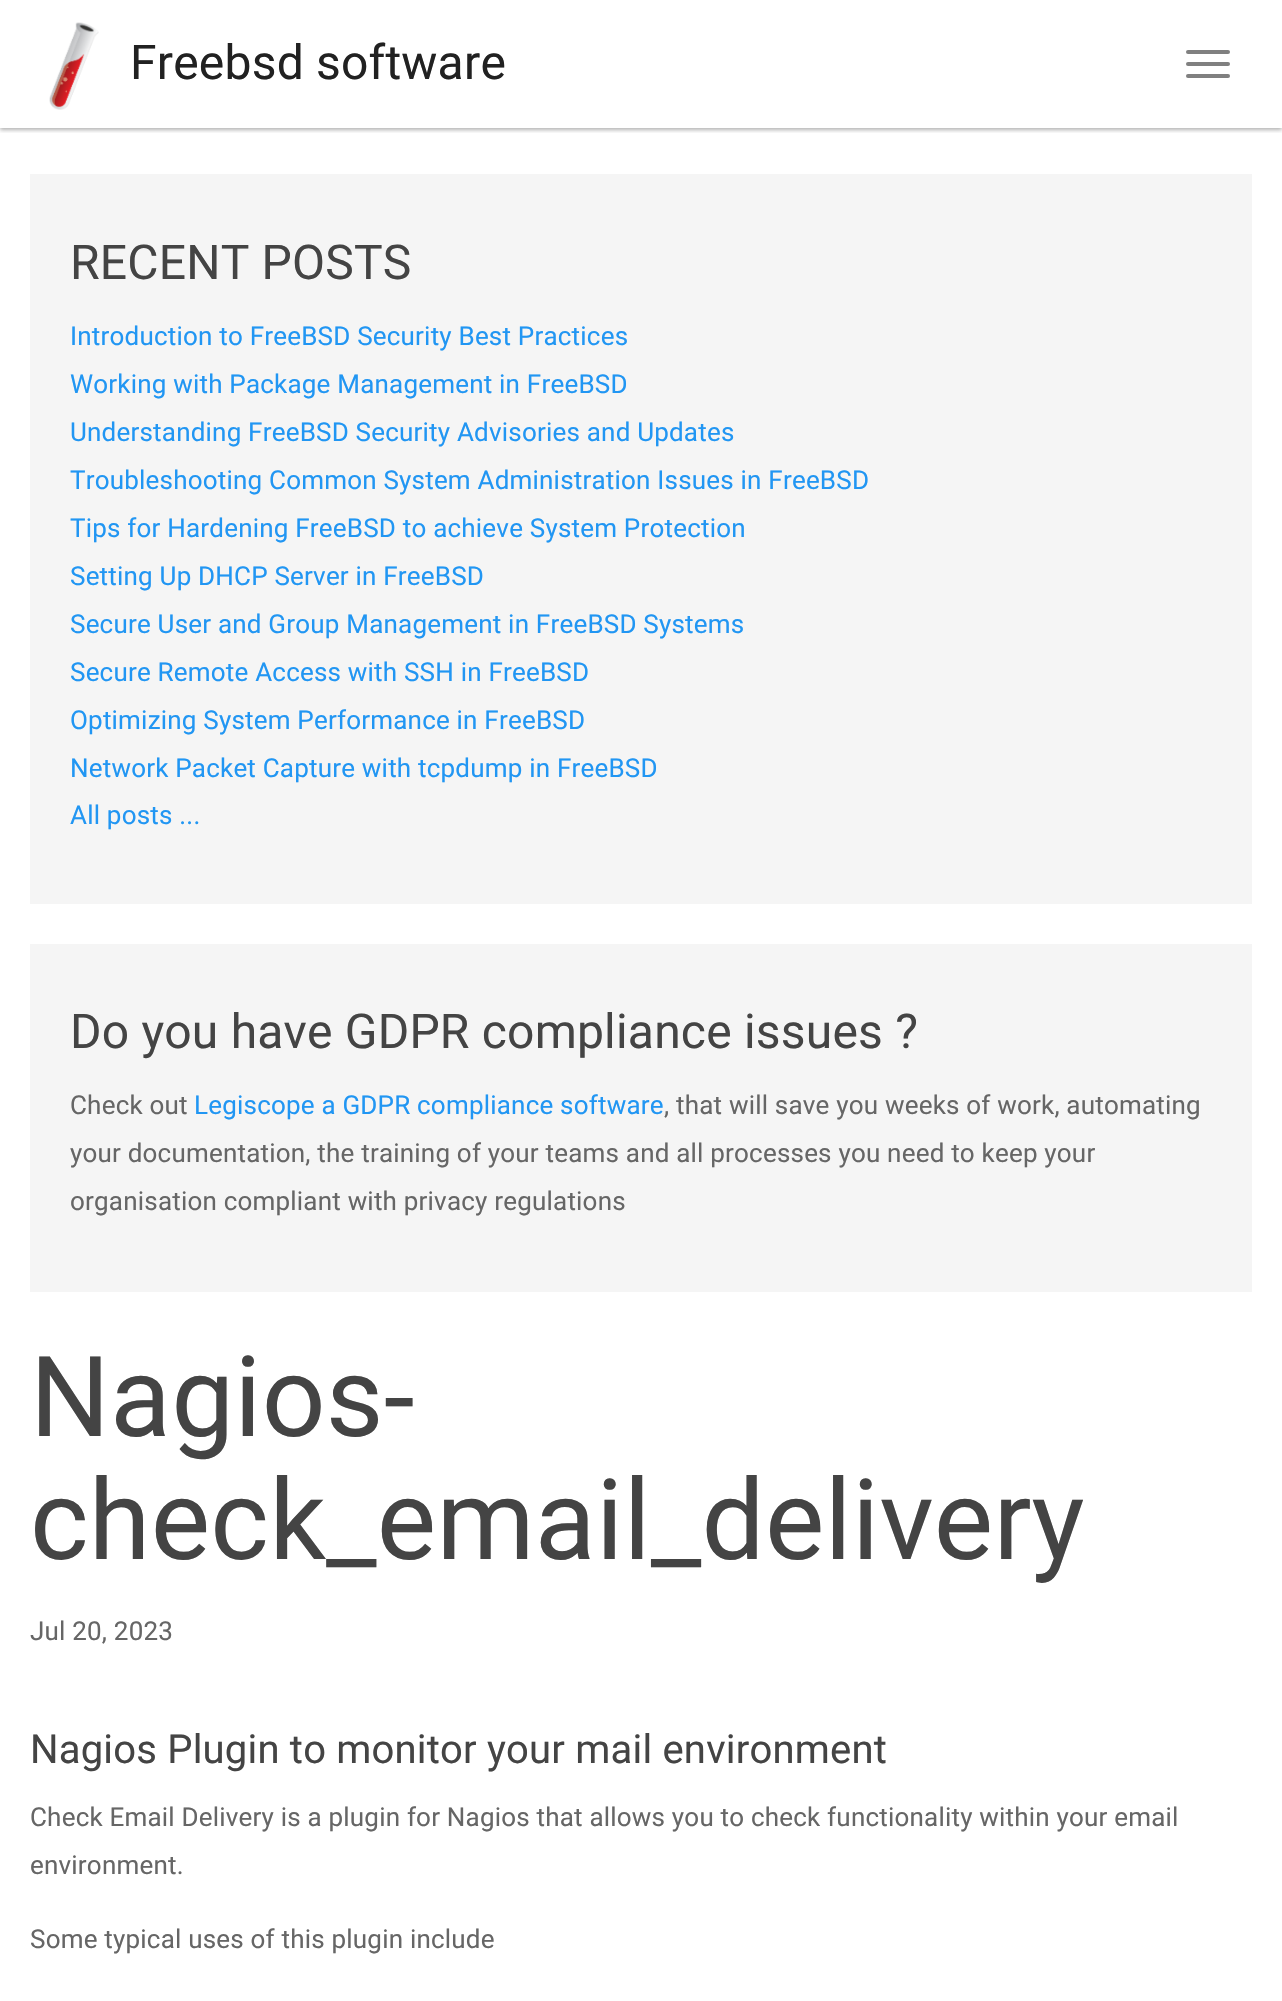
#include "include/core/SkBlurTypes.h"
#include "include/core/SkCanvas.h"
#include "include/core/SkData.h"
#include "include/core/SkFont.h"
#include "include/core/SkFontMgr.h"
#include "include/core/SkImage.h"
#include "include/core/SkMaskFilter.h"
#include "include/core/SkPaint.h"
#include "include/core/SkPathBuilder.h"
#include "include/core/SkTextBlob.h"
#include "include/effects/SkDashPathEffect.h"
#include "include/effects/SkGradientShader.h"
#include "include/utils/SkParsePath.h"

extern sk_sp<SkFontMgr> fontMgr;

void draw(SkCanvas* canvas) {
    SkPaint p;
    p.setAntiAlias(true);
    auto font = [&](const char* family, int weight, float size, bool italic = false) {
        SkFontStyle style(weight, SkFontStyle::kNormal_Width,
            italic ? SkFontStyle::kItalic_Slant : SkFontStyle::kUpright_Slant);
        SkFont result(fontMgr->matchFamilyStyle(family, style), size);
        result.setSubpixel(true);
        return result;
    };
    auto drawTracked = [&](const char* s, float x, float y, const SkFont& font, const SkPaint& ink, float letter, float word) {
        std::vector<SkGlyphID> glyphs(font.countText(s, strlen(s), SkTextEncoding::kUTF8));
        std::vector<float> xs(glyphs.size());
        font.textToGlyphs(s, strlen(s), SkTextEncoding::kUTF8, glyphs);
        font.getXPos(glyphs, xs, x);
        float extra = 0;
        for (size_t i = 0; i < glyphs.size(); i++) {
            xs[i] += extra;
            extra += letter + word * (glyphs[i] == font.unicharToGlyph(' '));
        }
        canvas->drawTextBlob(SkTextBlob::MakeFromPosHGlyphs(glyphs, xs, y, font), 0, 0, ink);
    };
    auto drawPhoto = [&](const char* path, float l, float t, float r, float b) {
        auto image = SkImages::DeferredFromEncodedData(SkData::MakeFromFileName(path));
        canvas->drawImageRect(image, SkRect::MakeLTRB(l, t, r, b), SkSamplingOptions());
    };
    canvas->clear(0xFFFFFFFF);
    canvas->save();
    canvas->clipRect(SkRect::MakeLTRB(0, 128, 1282, 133));
    p.setColor(0x4D000000);
    p.setMaskFilter(SkMaskFilter::MakeBlur(kNormal_SkBlurStyle, 2));
    canvas->drawRect(SkRect::MakeLTRB(0, 2, 1282, 130), p);
    p.setMaskFilter(nullptr);
    canvas->restore();
    drawPhoto("media/1.png", 49, 22, 99, 110);
    auto font1 = font("Roboto", 400, 48);
    p.setColor(0xFF212121);
    drawTracked("Freebsd software", 130, 79, font1, p, 0.2f, 0);
    p.setColor(0xFF808080);
    canvas->drawRoundRect(SkRect::MakeLTRB(1186, 50, 1230, 54), 2, 2, p);
    canvas->drawRoundRect(SkRect::MakeLTRB(1186, 62, 1230, 66), 2, 2, p);
    canvas->drawRoundRect(SkRect::MakeLTRB(1186, 74, 1230, 78), 2, 2, p);
    p.setColor(0xFFF5F5F5);
    canvas->drawRect(SkRect::MakeLTRB(30, 174, 1252, 904), p);
    p.setColor(0xFF444444);
    drawTracked("RECENT POSTS", 70, 279, font1, p, 0.2f, 0);
    auto font2 = font("Roboto", 400, 26);
    p.setColor(0xFF2196F3);
    {
        const struct { const char* s; float x, y; } items[] = {
            {"Introduction to FreeBSD Security Best Practices", 70, 345},
            {"Working with Package Management in FreeBSD", 70, 393},
            {"Understanding FreeBSD Security Advisories and Updates", 70, 441},
            {"Troubleshooting Common System Administration Issues in FreeBSD", 70, 489},
            {"Tips for Hardening FreeBSD to achieve System Protection", 70, 537},
            {"Setting Up DHCP Server in FreeBSD", 70, 585},
            {"Secure User and Group Management in FreeBSD Systems", 70, 633},
            {"Secure Remote Access with SSH in FreeBSD", 70, 681},
            {"Optimizing System Performance in FreeBSD", 70, 729},
            {"Network Packet Capture with tcpdump in FreeBSD", 70, 777},
            {"All posts ...", 70, 824},
        };
        for (auto [s, x, y] : items) {
            drawTracked(s, x, y, font2, p, 0.2f, 0);
        }
    }
    p.setColor(0xFFF5F5F5);
    canvas->drawRect(SkRect::MakeLTRB(30, 944, 1252, 1292), p);
    p.setColor(0xFF444444);
    drawTracked("Do you have GDPR compliance issues ?", 70, 1048, font1, p, 0.2f, 0);
    p.setColor(0xFF666666);
    drawTracked("Check out", 70, 1114, font2, p, 0.2f, 0);
    p.setColor(0xFF2196F3);
    drawTracked("Legiscope a GDPR compliance software", 194, 1114, font2, p, 0.2f, 0);
    p.setColor(0xFF666666);
    {
        const struct { const char* s; float x, y; } items[] = {
            {", that will save you weeks of work, automating", 664, 1114},
            {"your documentation, the training of your teams and all processes you need to keep your", 70, 1162},
            {"organisation compliant with privacy regulations", 70, 1210},
        };
        for (auto [s, x, y] : items) {
            drawTracked(s, x, y, font2, p, 0.2f, 0);
        }
    }
    auto font3 = font("Roboto", 400, 112);
    p.setColor(0xFF444444);
    drawTracked("Nagios-", 30, 1436, font3, p, 0.2f, 0);
    drawTracked("check_email_delivery", 30, 1559, font3, p, 0.2f, 0);
    p.setColor(0xFF666666);
    drawTracked("Jul 20, 2023", 30, 1640, font2, p, 0.2f, 0);
    auto font4 = font("Roboto", 400, 40);
    p.setColor(0xFF444444);
    drawTracked("Nagios Plugin to monitor your mail environment", 30, 1763, font4, p, 0.2f, 0);
    p.setColor(0xFF666666);
    {
        const struct { const char* s; float x, y; } items[] = {
            {"Check Email Delivery is a plugin for Nagios that allows you to check functionality within your email", 30, 1826},
            {"environment.", 30, 1874},
            {"Some typical uses of this plugin include", 30, 1948},
        };
        for (auto [s, x, y] : items) {
            drawTracked(s, x, y, font2, p, 0.2f, 0);
        }
    }
}
